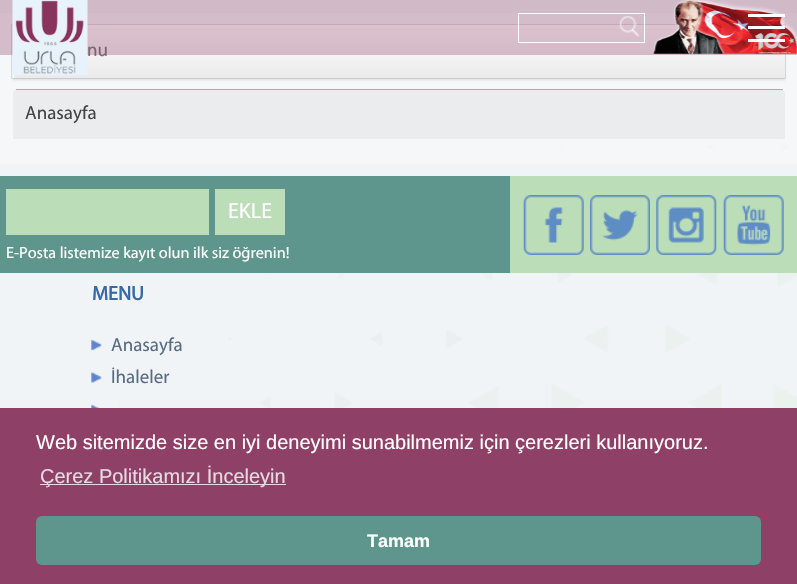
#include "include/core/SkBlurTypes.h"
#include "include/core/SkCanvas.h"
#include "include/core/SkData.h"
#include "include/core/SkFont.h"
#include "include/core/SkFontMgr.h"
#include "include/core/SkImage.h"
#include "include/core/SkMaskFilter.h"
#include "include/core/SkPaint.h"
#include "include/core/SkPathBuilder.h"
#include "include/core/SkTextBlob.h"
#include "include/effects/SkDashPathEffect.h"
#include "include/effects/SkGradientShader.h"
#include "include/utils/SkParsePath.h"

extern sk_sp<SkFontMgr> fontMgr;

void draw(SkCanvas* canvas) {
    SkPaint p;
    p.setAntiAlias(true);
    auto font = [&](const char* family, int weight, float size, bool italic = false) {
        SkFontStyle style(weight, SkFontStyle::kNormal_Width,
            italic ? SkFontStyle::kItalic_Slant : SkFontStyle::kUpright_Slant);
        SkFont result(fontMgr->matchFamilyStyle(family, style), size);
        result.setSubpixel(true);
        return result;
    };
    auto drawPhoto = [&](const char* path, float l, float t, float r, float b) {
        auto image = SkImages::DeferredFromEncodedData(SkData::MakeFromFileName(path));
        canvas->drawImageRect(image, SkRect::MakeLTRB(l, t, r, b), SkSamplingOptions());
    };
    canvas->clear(0xFFF1F4F7);
    drawPhoto("media/1.png", 118, 143, 797, 408);
    p.setColor(0x4DFFFFFF);
    canvas->drawRect(SkRect::MakeLTRB(0, 13, 797, 164), p);
    p.setColor(0x1A000000);
    p.setMaskFilter(SkMaskFilter::MakeBlur(kNormal_SkBlurStyle, 1));
    canvas->drawRect(SkRect::MakeLTRB(13, 28, 785, 80), p);
    p.setMaskFilter(nullptr);
    p.setStyle(SkPaint::kStroke_Style);
    p.setStrokeWidth(1);
    p.setColor(0x4D9B9B9B);
    canvas->drawRect(SkRect::MakeLTRB(11.5f, 24.5f, 785.5f, 78.5f), p);
    p.setStyle(SkPaint::kFill_Style);
    {
        const SkColor colors[] = {0xFFFFFFFF, 0xFFEAEAEA};
        const float stops[] = {0.01f, 1};
        const SkPoint ends[] = {{399, 25}, {399, 78}};
        p.setShader(SkGradientShader::MakeLinear(ends, colors, stops, 2, SkTileMode::kClamp));
        p.setAlpha(255);
    }
    canvas->drawRect(SkRect::MakeLTRB(13, 25, 785, 78), p);
    auto font1 = font("Myriad", 400, 19);
    p.setShader(nullptr);
    p.setColor(0xFF777777);
    canvas->drawString("nu", 87, 56, font1, p);
    p.setColor(0x4D89345D);
    canvas->drawRect(SkRect::MakeLTRB(0, 0, 797, 55), p);
    p.setStyle(SkPaint::kStroke_Style);
    p.setColor(0xFFFFFFFF);
    canvas->drawRect(SkRect::MakeLTRB(518.5f, 13.5f, 644.5f, 42.5f), p);
    drawPhoto("media/2.png", 619, 16, 640, 37);
    drawPhoto("media/3.png", 653, 0, 797, 54);
    drawPhoto("media/4.png", 12, 0, 88, 75);
    p.setStyle(SkPaint::kFill_Style);
    {
        const struct { float l, t, r, b; SkColor color; } items[] = {
            {748, 14, 785, 17, 0xFFFFFFFF},
            {748, 26, 785, 29, 0xFFFFFFFF},
            {748, 39, 785, 42, 0xFFFFFFFF},
            {13, 75, 14, 78, 0xE6FFFFFF},
        };
        for (auto [l, t, r, b, color] : items) {
            p.setColor(color);
            canvas->drawRect(SkRect::MakeLTRB(l, t, r, b), p);
        }
    }
    p.setColor(0xFFEBECED);
    canvas->drawPath(SkPathBuilder().moveTo(19, 89).lineTo(779, 89).cubicTo(782.5f, 89, 785, 91.5f, 785, 95).lineTo(785, 139).lineTo(13, 139).lineTo(13, 95).cubicTo(13, 91.5f, 15.5f, 89, 19, 89).close().detach(), p);
    p.setColor(0xB364A28E);
    canvas->drawRect(SkRect::MakeLTRB(16, 89, 783, 90), p);
    p.setColor(0xFF444444);
    canvas->drawString("Anasayfa", 25, 119, font1, p);
    {
        const struct { float l, t, r, b; SkColor color; } items[] = {
            {0, 176, 510, 273, 0xFF5E968D},
            {6, 189, 209, 235, 0xFFBBDDB8},
            {215, 189, 285, 235, 0xFFBBDDB8},
        };
        for (auto [l, t, r, b, color] : items) {
            p.setColor(color);
            canvas->drawRect(SkRect::MakeLTRB(l, t, r, b), p);
        }
    }
    auto font2 = font("Myriad", 400, 22);
    p.setColor(0xFFFFFFFF);
    canvas->drawString("EKLE", 228, 218, font2, p);
    auto font3 = font("Myriad", 400, 16.25f);
    canvas->drawString("E-Posta listemize kayıt olun ilk siz öğrenin!", 6, 258, font3, p);
    p.setColor(0xFFBBDDB8);
    canvas->drawRect(SkRect::MakeLTRB(510, 176, 797, 273), p);
    drawPhoto("media/5.png", 523, 195, 584, 255);
    drawPhoto("media/6.png", 590, 195, 650, 255);
    drawPhoto("media/7.png", 656, 195, 717, 255);
    drawPhoto("media/8.png", 723, 195, 784, 255);
    auto font4 = font("Myriad", 700, 20);
    p.setColor(0xFF3769A3);
    canvas->drawString("MENU", 92, 300, font4, p);
    drawPhoto("media/9.png", 91, 339, 102, 351);
    p.setColor(0xFF586B82);
    canvas->drawString("Anasayfa", 111, 351, font1, p);
    drawPhoto("media/10.png", 91, 372, 102, 383);
    canvas->drawString("İhaleler", 111, 383, font1, p);
    drawPhoto("media/11.png", 91, 404, 100, 408);
    p.setColor(0xFF8E4067);
    canvas->drawRect(SkRect::MakeLTRB(0, 408, 797, 584), p);
    auto font5 = font("Liberation Sans", 400, 20);
    p.setColor(0xFFFFFFFF);
    canvas->drawString("Web sitemizde size en iyi deneyimi sunabilmemiz için çerezleri kullanıyoruz.", 36, 449, font5, p);
    p.setColor(0xFFE8D9E1);
    canvas->drawRect(SkRect::MakeLTRB(40, 484, 286, 485), p);
    canvas->drawString("Çerez Politikamızı İnceleyin", 40, 483, font5, p);
    p.setColor(0xFF5E968D);
    canvas->drawRoundRect(SkRect::MakeLTRB(36, 516, 761, 565), 6, 6, p);
    auto font6 = font("Liberation Sans", 700, 18);
    p.setColor(0xFFFFFFFF);
    canvas->drawString("Tamam", 367, 547, font6, p);
}
